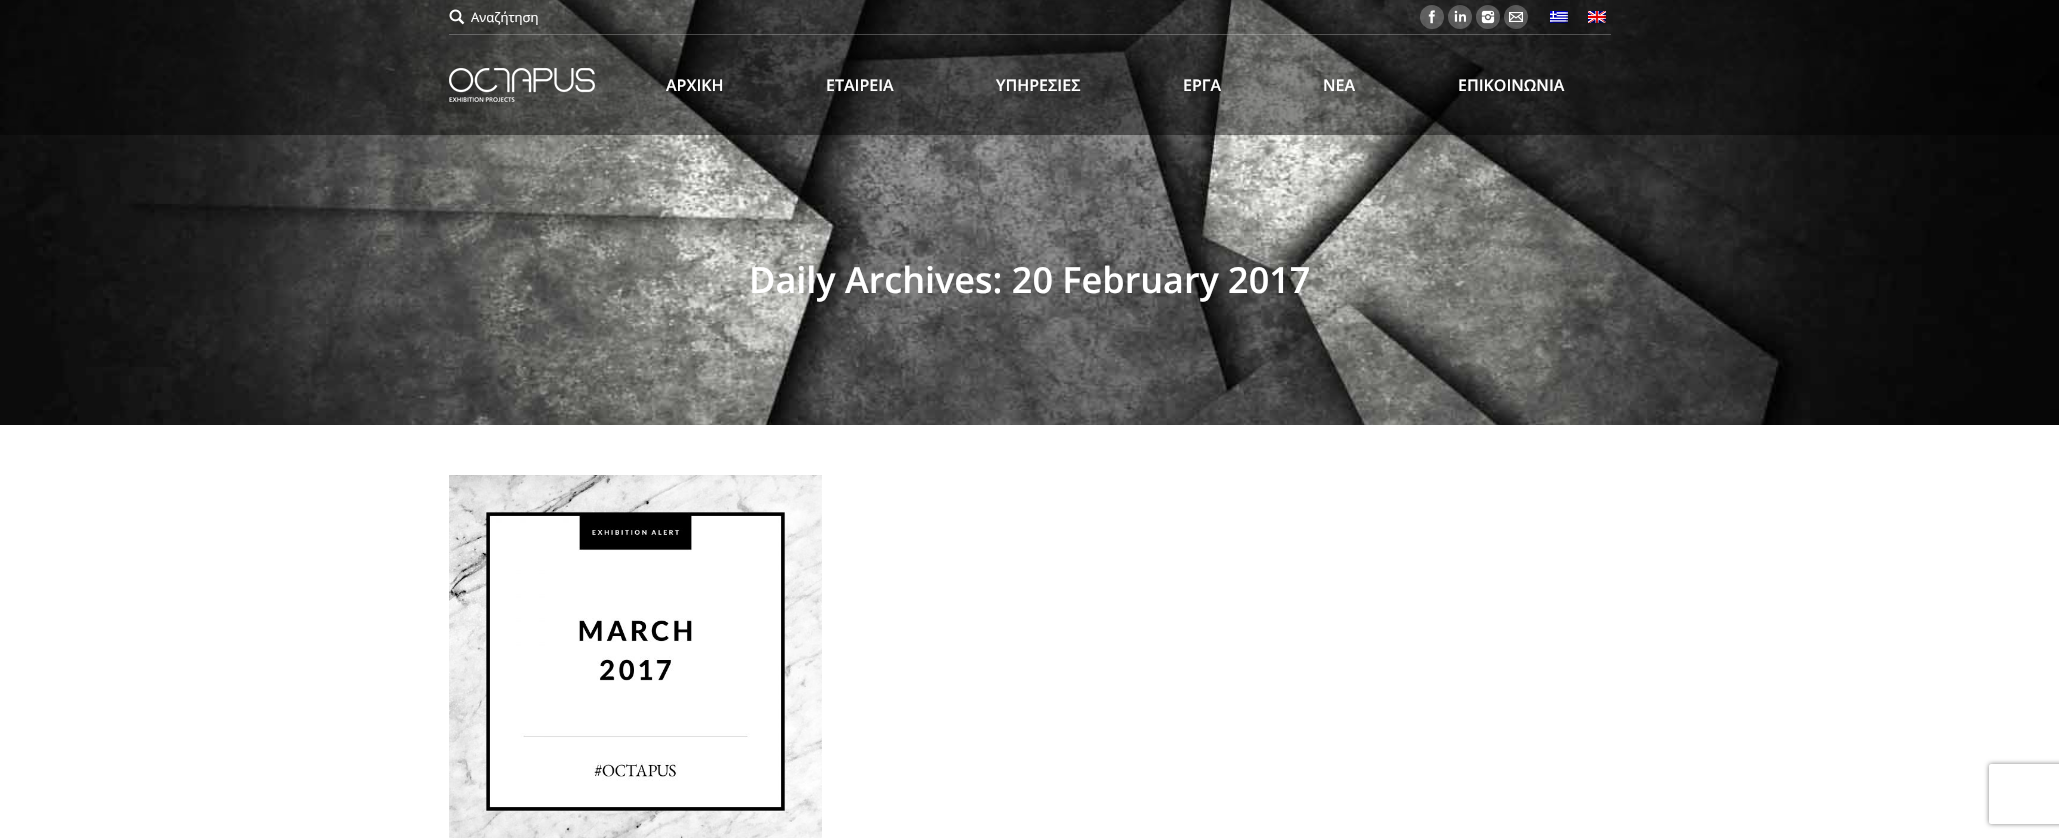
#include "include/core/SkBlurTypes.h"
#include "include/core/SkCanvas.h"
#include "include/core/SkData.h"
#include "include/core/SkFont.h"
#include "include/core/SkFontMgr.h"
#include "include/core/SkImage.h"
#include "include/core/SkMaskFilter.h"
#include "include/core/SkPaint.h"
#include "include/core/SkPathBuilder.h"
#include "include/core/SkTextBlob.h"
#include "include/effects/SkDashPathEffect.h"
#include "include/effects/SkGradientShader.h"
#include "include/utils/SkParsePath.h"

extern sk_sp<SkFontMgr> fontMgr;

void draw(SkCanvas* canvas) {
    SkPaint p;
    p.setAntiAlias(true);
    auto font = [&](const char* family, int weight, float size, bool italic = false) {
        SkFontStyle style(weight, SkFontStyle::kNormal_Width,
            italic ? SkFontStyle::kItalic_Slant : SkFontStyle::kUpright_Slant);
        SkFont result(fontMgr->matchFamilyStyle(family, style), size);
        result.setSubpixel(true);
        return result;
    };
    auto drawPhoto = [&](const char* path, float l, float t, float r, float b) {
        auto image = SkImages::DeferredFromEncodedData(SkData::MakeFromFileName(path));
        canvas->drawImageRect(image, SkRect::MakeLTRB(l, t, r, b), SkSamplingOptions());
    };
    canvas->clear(0xFFFFFFFF);
    drawPhoto("media/9.png", 0, 0, 2059, 425);
    p.setColor(0x75000000);
    canvas->drawRect(SkRect::MakeLTRB(0, 0, 2059, 135), p);
    drawPhoto("media/1.png", 449, 9, 465, 25);
    auto font1 = font("Open Sans", 400, 13);
    p.setColor(0xFFFFFFFF);
    canvas->drawString("Αναζήτηση", 471, 22, font1, p);
    p.setColor(0x40FFFFFF);
    canvas->drawCircle(1432, 17, 12, p);
    drawPhoto("media/2.png", 1428, 10, 1435, 24);
    canvas->drawCircle(1460, 17, 12, p);
    drawPhoto("media/3.png", 1454, 10, 1466, 22);
    canvas->drawCircle(1488, 17, 12, p);
    drawPhoto("media/4.png", 1481, 10, 1495, 24);
    canvas->drawCircle(1516, 17, 12, p);
    drawPhoto("media/5.png", 1509, 12, 1523, 22);
    drawPhoto("media/6.png", 1550, 11, 1568, 23);
    drawPhoto("media/7.png", 1588, 11, 1606, 23);
    canvas->drawRect(SkRect::MakeLTRB(449, 34, 1611, 35), p);
    drawPhoto("media/8.png", 449, 68, 595, 102);
    auto font2 = font("Open Sans", 600, 16);
    p.setColor(0xFFFFFFFF);
    {
        const struct { const char* s; float x, y; } items[] = {
            {"ΑΡΧΙΚΗ", 666, 91},
            {"ΕΤΑΙΡΕΙΑ", 826, 91},
            {"ΥΠΗΡΕΣΙΕΣ", 996, 91},
            {"ΕΡΓΑ", 1183, 91},
            {"ΝΕΑ", 1323, 91},
            {"ΕΠΙΚΟΙΝΩΝΙΑ", 1458, 91},
        };
        for (auto [s, x, y] : items) {
            canvas->drawString(s, x, y, font2, p);
        }
    }
    auto font3 = font("Open Sans", 600, 36);
    canvas->drawString("Daily Archives: 20 February 2017", 749, 293, font3, p);
    drawPhoto("media/10.png", 449, 475, 822, 838);
    canvas->save();
    canvas->clipPath(SkPathBuilder(SkPathFillType::kEvenOdd).moveTo(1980, 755).lineTo(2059, 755).lineTo(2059, 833).lineTo(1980, 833).close().moveTo(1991, 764).lineTo(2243, 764).cubicTo(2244, 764, 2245, 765, 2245, 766).lineTo(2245, 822).cubicTo(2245, 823, 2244, 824, 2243, 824).lineTo(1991, 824).cubicTo(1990, 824, 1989, 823, 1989, 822).lineTo(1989, 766).cubicTo(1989, 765, 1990, 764, 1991, 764).close().detach(), true);
    p.setColor(0xFF808080);
    p.setMaskFilter(SkMaskFilter::MakeBlur(kNormal_SkBlurStyle, 2.5f));
    canvas->drawRoundRect(SkRect::MakeLTRB(1989, 764, 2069, 824), 2, 2, p);
    p.setMaskFilter(nullptr);
    canvas->restore();
}
